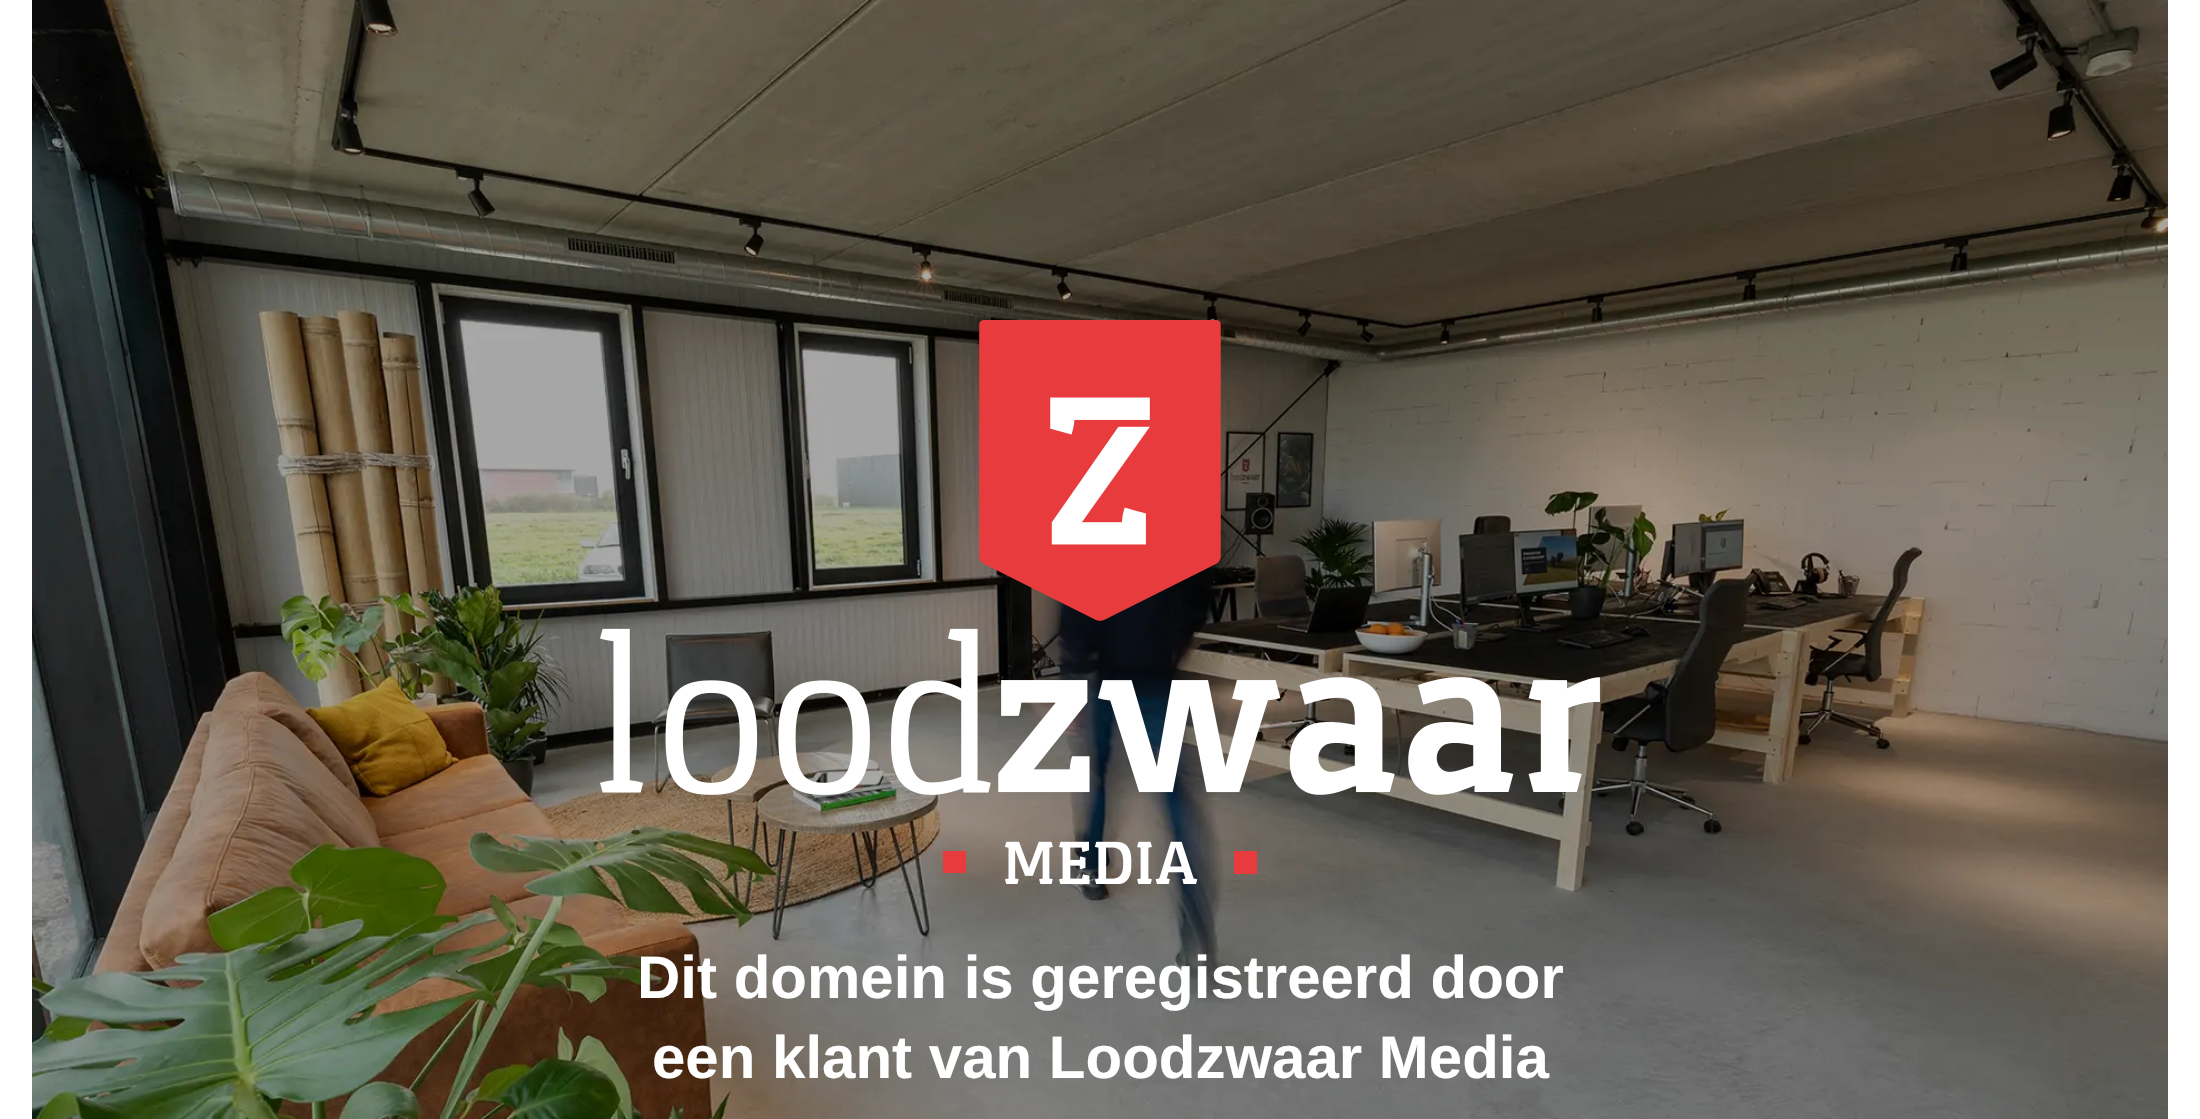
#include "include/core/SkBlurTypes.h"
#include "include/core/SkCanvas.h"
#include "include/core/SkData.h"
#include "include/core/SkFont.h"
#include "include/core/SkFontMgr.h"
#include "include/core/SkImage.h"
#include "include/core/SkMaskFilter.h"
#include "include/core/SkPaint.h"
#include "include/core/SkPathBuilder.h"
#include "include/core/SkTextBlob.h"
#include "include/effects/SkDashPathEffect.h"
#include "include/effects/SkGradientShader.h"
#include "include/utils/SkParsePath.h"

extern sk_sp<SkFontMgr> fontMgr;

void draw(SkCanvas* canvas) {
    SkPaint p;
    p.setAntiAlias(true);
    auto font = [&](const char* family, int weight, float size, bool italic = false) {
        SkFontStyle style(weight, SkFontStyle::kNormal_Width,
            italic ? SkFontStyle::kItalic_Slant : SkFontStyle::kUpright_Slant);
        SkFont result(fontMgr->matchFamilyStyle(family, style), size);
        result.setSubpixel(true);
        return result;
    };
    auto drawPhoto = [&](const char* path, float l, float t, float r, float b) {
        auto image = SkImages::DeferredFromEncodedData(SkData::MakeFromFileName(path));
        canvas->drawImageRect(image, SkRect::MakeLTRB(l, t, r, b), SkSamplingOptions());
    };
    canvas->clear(0xFFFFFFFF);
    drawPhoto("media/1.png", 32, 0, 2168, 1119);
    drawPhoto("media/2.png", 600, 320, 1600, 884);
    auto font1 = font("Liberation Sans", 700, 60);
    p.setColor(0xFFFFFFFF);
    canvas->drawString("Dit domein is geregistreerd door", 637, 998, font1, p);
    canvas->drawString("een klant van Loodzwaar Media", 652, 1078, font1, p);
}
